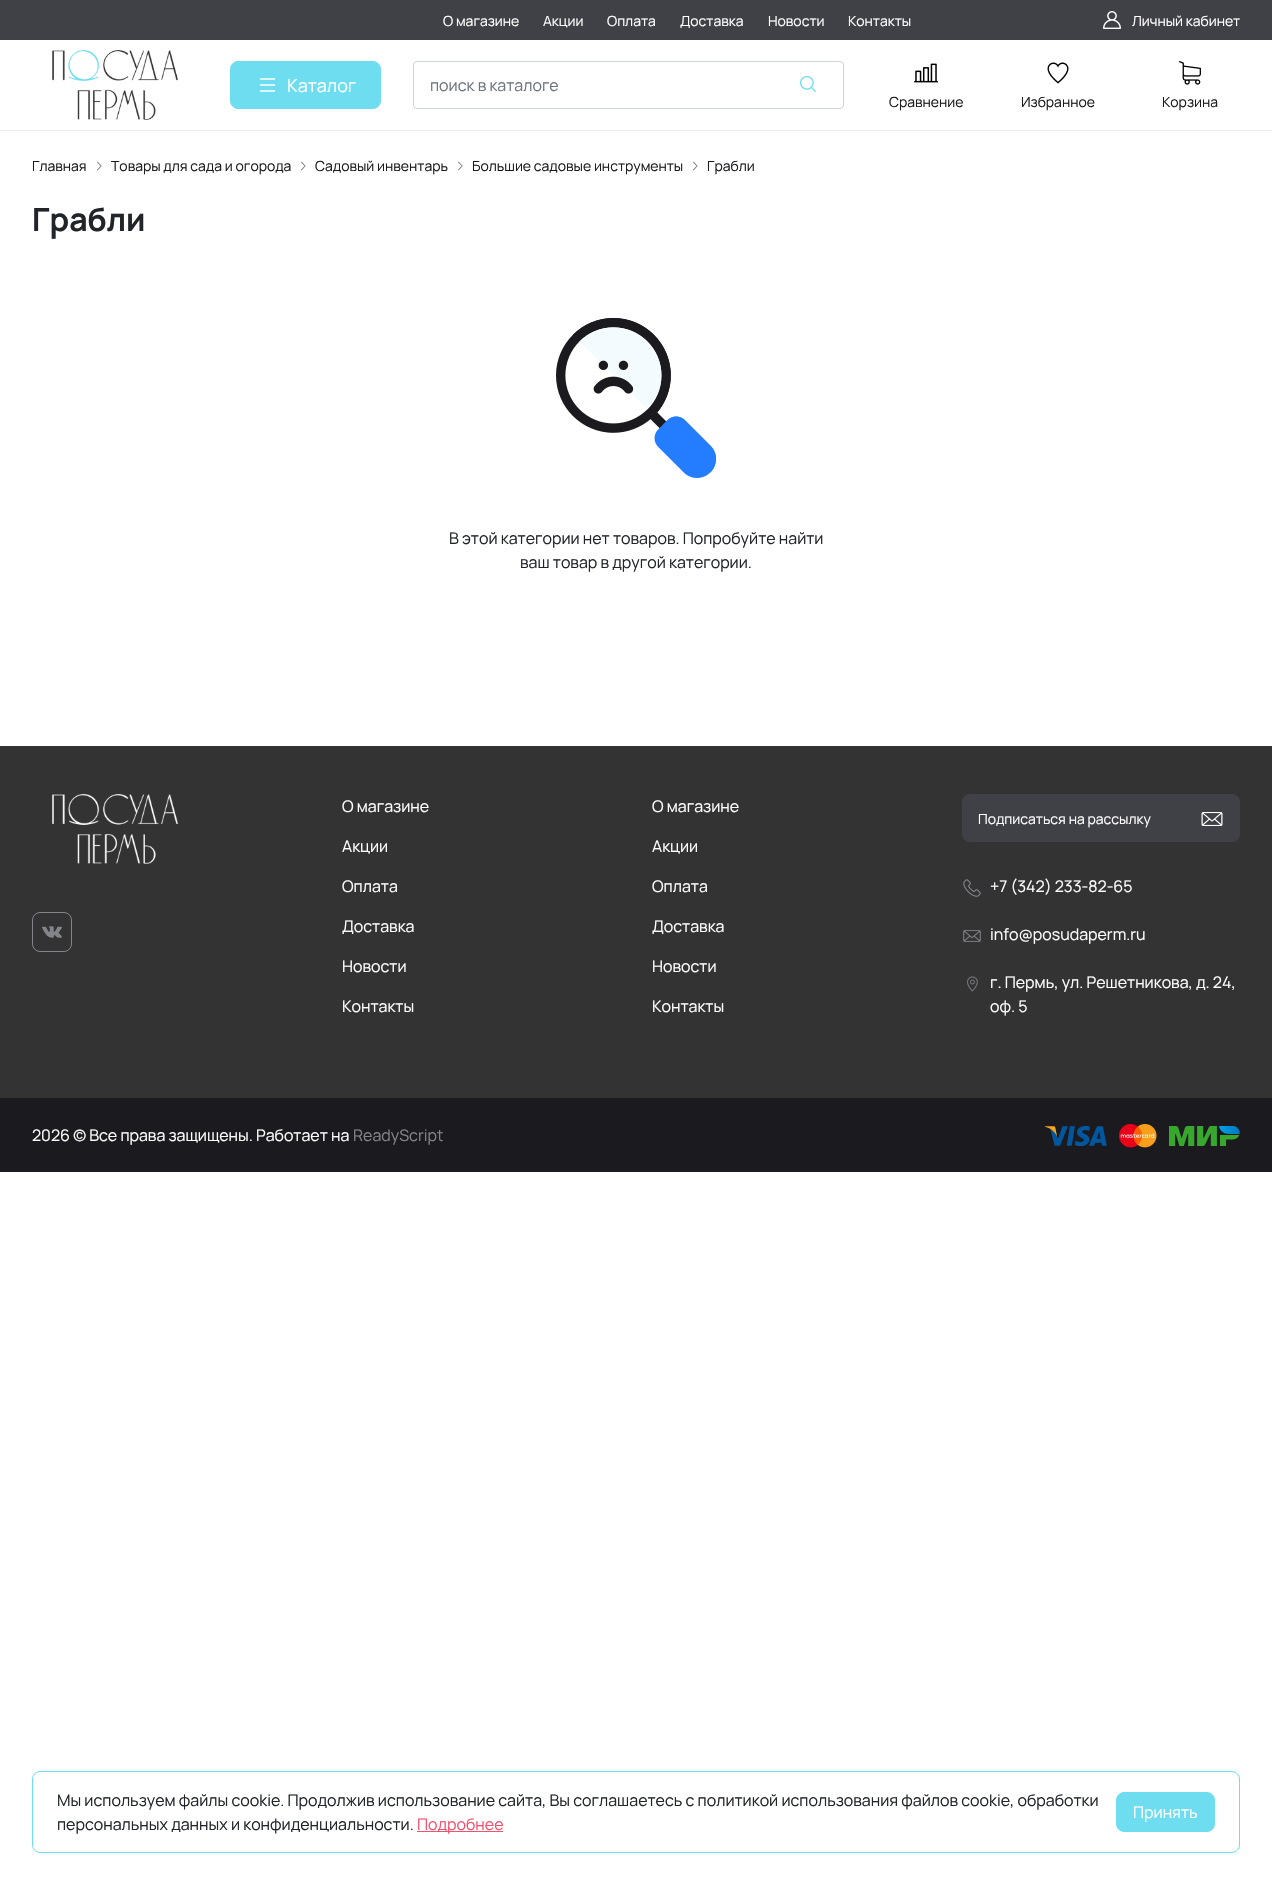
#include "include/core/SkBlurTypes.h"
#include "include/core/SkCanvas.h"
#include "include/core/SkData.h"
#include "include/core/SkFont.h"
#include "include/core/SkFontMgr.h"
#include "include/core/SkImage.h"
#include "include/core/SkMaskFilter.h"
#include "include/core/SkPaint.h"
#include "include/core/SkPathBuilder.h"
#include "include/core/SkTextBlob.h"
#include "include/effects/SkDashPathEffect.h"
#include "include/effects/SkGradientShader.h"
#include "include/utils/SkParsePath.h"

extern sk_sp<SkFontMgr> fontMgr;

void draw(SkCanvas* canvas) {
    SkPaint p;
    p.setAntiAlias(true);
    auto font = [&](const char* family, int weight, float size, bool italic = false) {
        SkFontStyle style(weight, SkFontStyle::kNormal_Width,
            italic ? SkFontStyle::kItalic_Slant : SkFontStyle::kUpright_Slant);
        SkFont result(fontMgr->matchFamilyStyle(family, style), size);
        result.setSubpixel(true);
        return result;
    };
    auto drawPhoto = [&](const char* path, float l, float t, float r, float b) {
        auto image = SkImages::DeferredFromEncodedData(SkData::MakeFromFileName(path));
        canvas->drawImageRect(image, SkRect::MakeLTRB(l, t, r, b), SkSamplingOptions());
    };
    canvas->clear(0xFFFFFFFF);
    p.setColor(0xFF404147);
    canvas->drawRect(SkRect::MakeLTRB(0, 0, 1272, 40), p);
    auto font1 = font("Manrope", 400, 14);
    p.setColor(0xFFFFFFFF);
    {
        const struct { const char* s; float x, y; } items[] = {
            {"О магазине", 443, 26},
            {"Акции", 543, 26},
            {"Оплата", 607, 26},
            {"Доставка", 680, 26},
            {"Новости", 768, 26},
            {"Контакты", 848, 26},
        };
        for (auto [s, x, y] : items) {
            canvas->drawString(s, x, y, font1, p);
        }
    }
    drawPhoto("media/1.png", 1103, 11, 1121, 29);
    canvas->drawString("Личный кабинет", 1132, 26, font1, p);
    p.setColor(0xFFEAEBEE);
    canvas->drawRect(SkRect::MakeLTRB(0, 130, 1272, 131), p);
    drawPhoto("media/2.png", 52, 50, 178, 120);
    p.setColor(0xFF6FDDF0);
    canvas->drawRoundRect(SkRect::MakeLTRB(230.5f, 61.5f, 380.5f, 108.5f), 7.5f, 7.5f, p);
    p.setStyle(SkPaint::kStroke_Style);
    p.setStrokeWidth(1);
    canvas->drawRoundRect(SkRect::MakeLTRB(230.5f, 61.5f, 380.5f, 108.5f), 7.5f, 7.5f, p);
    drawPhoto("media/3.png", 259, 78, 276, 92);
    auto font2 = font("Manrope", 400, 18);
    p.setStyle(SkPaint::kFill_Style);
    p.setColor(0xFFFFFFFF);
    canvas->drawString("Каталог", 287, 92, font2, p);
    p.setStyle(SkPaint::kStroke_Style);
    p.setColor(0xFFCED4DA);
    canvas->drawRoundRect(SkRect::MakeLTRB(413.5f, 61.5f, 843.5f, 108.5f), 3.5f, 3.5f, p);
    auto font3 = font("Manrope", 400, 16);
    p.setStyle(SkPaint::kFill_Style);
    p.setColor(0xFF6C757D);
    canvas->drawString("поиск в каталоге", 430, 91, font3, p);
    drawPhoto("media/4.png", 800, 76, 816, 92);
    drawPhoto("media/5.png", 914, 63, 938, 83);
    p.setColor(0xFF1B1B1F);
    canvas->drawString("Сравнение", 889, 107, font1, p);
    drawPhoto("media/6.png", 1047, 62, 1069, 84);
    canvas->drawString("Избранное", 1021, 107, font1, p);
    drawPhoto("media/7.png", 1179, 61, 1201, 85);
    canvas->drawString("Корзина", 1162, 107, font1, p);
    canvas->drawString("Главная", 32, 171, font1, p);
    drawPhoto("media/8.png", 97, 161, 102, 171);
    canvas->drawString("Товары для сада и огорода", 111, 171, font1, p);
    drawPhoto("media/8.png", 301, 161, 306, 171);
    canvas->drawString("Садовый инвентарь", 315, 171, font1, p);
    drawPhoto("media/8.png", 458, 161, 463, 171);
    canvas->drawString("Большие садовые инструменты", 472, 171, font1, p);
    drawPhoto("media/8.png", 693, 161, 698, 171);
    canvas->drawString("Грабли", 707, 171, font1, p);
    auto font4 = font("Manrope", 700, 32);
    p.setColor(0xFF212529);
    canvas->drawString("Грабли", 32, 231, font4, p);
    drawPhoto("media/9.png", 556, 318, 716, 478);
    canvas->drawString("В этой категории нет товаров. Попробуйте найти", 449, 544, font3, p);
    canvas->drawString("ваш товар в другой категории.", 520, 568, font3, p);
    p.setColor(0xFF333333);
    canvas->drawRect(SkRect::MakeLTRB(0, 746, 1272, 1098), p);
    drawPhoto("media/10.png", 52, 794, 178, 864);
    p.setStyle(SkPaint::kStroke_Style);
    p.setColor(0xFF84858A);
    canvas->drawRoundRect(SkRect::MakeLTRB(32.5f, 912.5f, 71.5f, 951.5f), 7.5f, 7.5f, p);
    drawPhoto("media/11.png", 42, 926, 62, 938);
    p.setStyle(SkPaint::kFill_Style);
    p.setColor(0xFFFFFFFF);
    {
        const struct { const char* s; float x, y; } items[] = {
            {"О магазине", 342, 812},
            {"Акции", 342, 852},
            {"Оплата", 342, 892},
            {"Доставка", 342, 932},
            {"Новости", 342, 972},
            {"Контакты", 342, 1012},
            {"О магазине", 652, 812},
            {"Акции", 652, 852},
            {"Оплата", 652, 892},
            {"Доставка", 652, 932},
            {"Новости", 652, 972},
            {"Контакты", 652, 1012},
        };
        for (auto [s, x, y] : items) {
            canvas->drawString(s, x, y, font3, p);
        }
    }
    p.setColor(0xFF404147);
    canvas->drawRoundRect(SkRect::MakeLTRB(962, 794, 1240, 842), 8, 8, p);
    p.setColor(0xFFFFFFFF);
    canvas->drawString("Подписаться на рассылку", 978, 824, font1, p);
    drawPhoto("media/12.png", 1201, 812, 1223, 826);
    drawPhoto("media/13.png", 963, 879, 981, 897);
    canvas->drawString("+7 (342) 233-82-65", 990, 892, font3, p);
    drawPhoto("media/14.png", 963, 930, 981, 942);
    canvas->drawString("info@posudaperm.ru", 990, 940, font3, p);
    drawPhoto("media/15.png", 967, 976, 978, 992);
    canvas->drawString("г. Пермь, ул. Решетникова, д. 24,", 990, 988, font3, p);
    canvas->drawString("оф. 5", 990, 1012, font3, p);
    p.setColor(0xFF1B1B1F);
    canvas->drawRect(SkRect::MakeLTRB(0, 1098, 1272, 1172), p);
    p.setColor(0xFFFFFFFF);
    canvas->drawString("2026 © Все права защищены. Работает на", 32, 1141, font3, p);
    p.setColor(0xFF84858A);
    canvas->drawString("ReadyScript", 353, 1141, font3, p);
    drawPhoto("media/16.png", 1045, 1126, 1107, 1146);
    drawPhoto("media/17.png", 1119, 1124, 1157, 1148);
    drawPhoto("media/18.png", 1169, 1126, 1240, 1146);
    p.setStyle(SkPaint::kStroke_Style);
    p.setColor(0xFF6FDDF0);
    canvas->drawRoundRect(SkRect::MakeLTRB(32.5f, 1771.5f, 1239.5f, 1852.5f), 7.5f, 7.5f, p);
    p.setStyle(SkPaint::kFill_Style);
    p.setColor(0xFF212529);
    canvas->drawString("Мы используем файлы cookie. Продолжив использование сайта, Вы соглашаетесь с политикой использования файлов cookie, обработки", 57, 1806, font3, p);
    canvas->drawString("персональных данных и конфиденциальности.", 57, 1830, font3, p);
    p.setColor(0xFFF2526E);
    canvas->drawRect(SkRect::MakeLTRB(417, 1831, 503, 1832), p);
    canvas->drawString("Подробнее", 417, 1830, font3, p);
    p.setColor(0xFF6FDDF0);
    canvas->drawRoundRect(SkRect::MakeLTRB(1116.5f, 1792.5f, 1214.5f, 1831.5f), 7.5f, 7.5f, p);
    p.setStyle(SkPaint::kStroke_Style);
    canvas->drawRoundRect(SkRect::MakeLTRB(1116.5f, 1792.5f, 1214.5f, 1831.5f), 7.5f, 7.5f, p);
    p.setStyle(SkPaint::kFill_Style);
    p.setColor(0xFFFFFFFF);
    canvas->drawString("Принять", 1133, 1818, font3, p);
}
